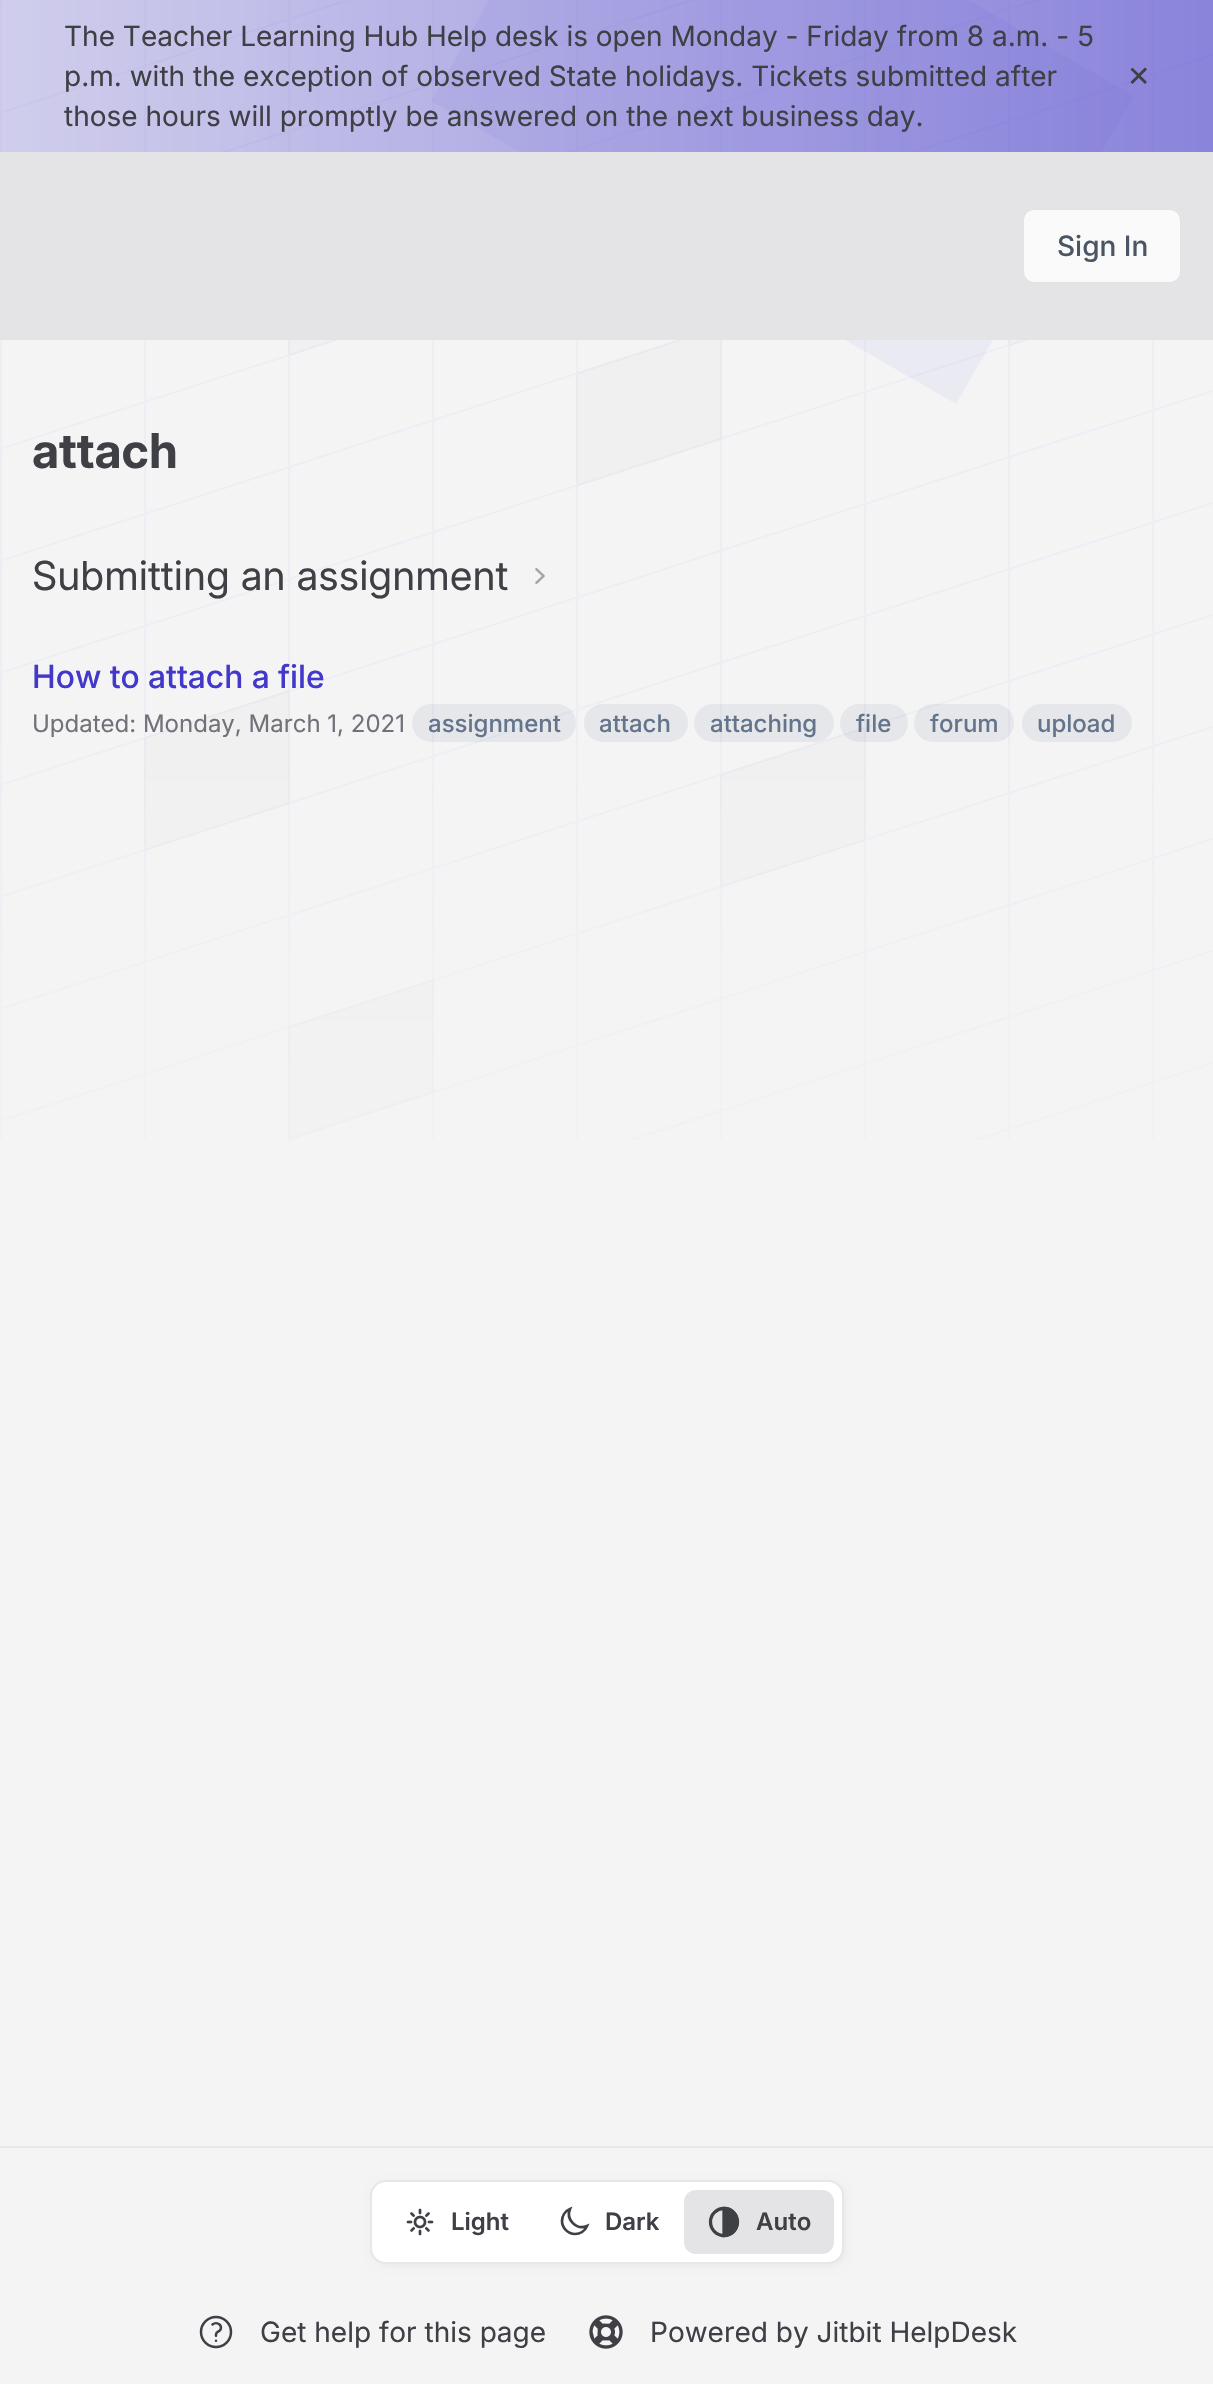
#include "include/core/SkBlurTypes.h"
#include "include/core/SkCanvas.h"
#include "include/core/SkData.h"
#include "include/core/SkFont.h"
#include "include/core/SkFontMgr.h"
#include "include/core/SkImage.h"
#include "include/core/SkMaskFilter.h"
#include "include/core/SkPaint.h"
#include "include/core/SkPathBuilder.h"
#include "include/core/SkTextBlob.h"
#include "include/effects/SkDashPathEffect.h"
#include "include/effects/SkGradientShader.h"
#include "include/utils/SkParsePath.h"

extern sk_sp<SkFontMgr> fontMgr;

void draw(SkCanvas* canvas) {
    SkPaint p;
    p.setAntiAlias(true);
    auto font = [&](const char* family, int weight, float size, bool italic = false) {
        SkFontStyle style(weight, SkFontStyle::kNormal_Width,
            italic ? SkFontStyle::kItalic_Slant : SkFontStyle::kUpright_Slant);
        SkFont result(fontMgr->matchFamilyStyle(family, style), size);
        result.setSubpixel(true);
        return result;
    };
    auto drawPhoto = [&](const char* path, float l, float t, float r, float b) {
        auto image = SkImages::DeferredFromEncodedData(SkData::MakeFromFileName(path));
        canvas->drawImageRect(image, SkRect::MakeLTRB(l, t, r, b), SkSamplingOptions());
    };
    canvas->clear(0xFFF4F4F5);
    drawPhoto("media/1.png", 0, 0, 1213, 1140);
    p.setColor(0x0D4338CA);
    canvas->drawPath(SkPathBuilder().moveTo(609, -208).lineTo(1134, 96).lineTo(956, 404).lineTo(431, 101).close().detach(), p);
    {
        const SkColor colors[] = {0x334338CA, 0x994338CA};
        const float stops[] = {0, 1};
        const SkPoint ends[] = {{0, 76}, {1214, 76}};
        p.setShader(SkGradientShader::MakeLinear(ends, colors, stops, 2, SkTileMode::kClamp));
        p.setAlpha(255);
    }
    canvas->drawRect(SkRect::MakeLTRB(0, 0, 1213, 152), p);
    auto font1 = font("Inter", 400, 28);
    p.setShader(nullptr);
    p.setColor(0xFF3F3F46);
    {
        const struct { const char* s; float x, y; } items[] = {
            {"The Teacher Learning Hub Help desk is open Monday - Friday from 8 a.m. - 5", 64, 46},
            {"p.m. with the exception of observed State holidays. Tickets submitted after", 64, 86},
            {"those hours will promptly be answered on the next business day.", 64, 126},
        };
        for (auto [s, x, y] : items) {
            canvas->drawString(s, x, y, font1, p);
        }
    }
    auto font2 = font("DejaVu Sans", 400, 28);
    canvas->drawString("✕", 1127, 86, font2, p);
    p.setColor(0xFFE4E4E7);
    canvas->drawRect(SkRect::MakeLTRB(0, 152, 1213, 340), p);
    p.setColor(0xFFFAFAFA);
    canvas->drawRoundRect(SkRect::MakeLTRB(1022, 208, 1182, 284), 12, 12, p);
    p.setStyle(SkPaint::kStroke_Style);
    p.setStrokeWidth(2);
    p.setColor(0x99D4D4D8);
    canvas->drawRoundRect(SkRect::MakeLTRB(1023, 209, 1181, 283), 11, 11, p);
    auto font3 = font("Inter", 500, 28);
    p.setStyle(SkPaint::kFill_Style);
    p.setColor(0xFF4B5563);
    canvas->drawString("Sign In", 1057, 256, font3, p);
    auto font4 = font("Inter", 700, 48);
    p.setColor(0xFF3F3F46);
    canvas->drawString("attach", 32, 468, font4, p);
    auto font5 = font("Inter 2", 400, 40);
    canvas->drawString("Submitting an assignment", 32, 590, font5, p);
    drawPhoto("media/2.png", 535, 568, 545, 584);
    auto font6 = font("Inter 2", 500, 32);
    p.setColor(0xFF4338CA);
    canvas->drawString("How to attach a file", 32, 688, font6, p);
    auto font7 = font("Inter", 400, 24);
    p.setColor(0xFF71717A);
    canvas->drawString("Updated: Monday, March 1, 2021", 32, 732, font7, p);
    p.setColor(0x1A64748B);
    canvas->drawRoundRect(SkRect::MakeLTRB(412, 704, 576, 742), 19, 19, p);
    auto font8 = font("Inter", 500, 24);
    p.setColor(0xFF64748B);
    canvas->drawString("assignment", 428, 732, font8, p);
    p.setColor(0xFFE6E7EA);
    canvas->drawRoundRect(SkRect::MakeLTRB(584, 704, 688, 742), 19, 19, p);
    p.setColor(0xFF64748B);
    canvas->drawString("attach", 599, 732, font8, p);
    p.setColor(0x1A64748B);
    canvas->drawRoundRect(SkRect::MakeLTRB(694, 704, 834, 742), 19, 19, p);
    p.setColor(0xFF64748B);
    canvas->drawString("attaching", 710, 732, font8, p);
    p.setColor(0x1A64748B);
    canvas->drawRoundRect(SkRect::MakeLTRB(840, 704, 908, 742), 19, 19, p);
    p.setColor(0xFF64748B);
    canvas->drawString("file", 856, 732, font8, p);
    p.setColor(0x1A64748B);
    canvas->drawRoundRect(SkRect::MakeLTRB(914, 704, 1014, 742), 19, 19, p);
    p.setColor(0xFF64748B);
    canvas->drawString("forum", 930, 732, font8, p);
    p.setColor(0xFFE6E7EA);
    canvas->drawRoundRect(SkRect::MakeLTRB(1022, 704, 1132, 742), 19, 19, p);
    p.setColor(0xFF64748B);
    canvas->drawString("upload", 1037, 732, font8, p);
    p.setColor(0xFFE5E7EB);
    canvas->drawRect(SkRect::MakeLTRB(0, 2146, 1213, 2148), p);
    p.setColor(0x0F000000);
    p.setMaskFilter(SkMaskFilter::MakeBlur(kNormal_SkBlurStyle, 5));
    canvas->drawRoundRect(SkRect::MakeLTRB(374, 2184, 844, 2264), 14, 14, p);
    p.setMaskFilter(nullptr);
    p.setColor(0xFFFFFFFF);
    canvas->drawRoundRect(SkRect::MakeLTRB(371, 2181, 843, 2263), 15, 15, p);
    p.setStyle(SkPaint::kStroke_Style);
    p.setColor(0xFFE5E7EB);
    canvas->drawRoundRect(SkRect::MakeLTRB(371, 2181, 843, 2263), 15, 15, p);
    drawPhoto("media/3.png", 406, 2208, 434, 2236);
    auto font9 = font("Inter", 600, 24);
    p.setStyle(SkPaint::kFill_Style);
    p.setColor(0xFF3F3F46);
    canvas->drawString("Light", 451, 2230, font9, p);
    p.setStyle(SkPaint::kStroke_Style);
    p.setStrokeWidth(2.7f);
    canvas->drawPath(SkPathBuilder().moveTo(587, 2226).cubicTo(576.5f, 2230.5f, 565.5f, 2219.5f, 570, 2209).cubicTo(565, 2211, 562, 2216, 562, 2221).cubicTo(562, 2228, 568, 2234, 575, 2234).cubicTo(580, 2234, 585, 2231, 587, 2226).close().detach(), p);
    p.setStyle(SkPaint::kFill_Style);
    canvas->drawString("Dark", 605, 2230, font9, p);
    p.setColor(0xFFE4E4E7);
    canvas->drawRoundRect(SkRect::MakeLTRB(684, 2190, 834, 2254), 12, 12, p);
    p.setStyle(SkPaint::kStroke_Style);
    p.setStrokeWidth(3.3f);
    p.setColor(0xFF3F3F46);
    canvas->drawCircle(724, 2222, 13.5f, p);
    p.setStyle(SkPaint::kFill_Style);
    canvas->drawPath(SkPathBuilder().moveTo(724, 2208.5f).cubicTo(741.5f, 2208.5f, 741.5f, 2235.5f, 724, 2235.5f).lineTo(724, 2222).close().detach(), p);
    p.setStyle(SkPaint::kStroke_Style);
    canvas->drawPath(SkPathBuilder().moveTo(724, 2208.5f).cubicTo(741.5f, 2208.5f, 741.5f, 2235.5f, 724, 2235.5f).lineTo(724, 2222).close().detach(), p);
    p.setStyle(SkPaint::kFill_Style);
    canvas->drawString("Auto", 756, 2230, font9, p);
    drawPhoto("media/4.png", 199, 2315, 233, 2349);
    canvas->drawString("Get help for this page", 260, 2342, font1, p);
    drawPhoto("media/5.png", 589, 2315, 623, 2349);
    canvas->drawString("Powered by Jitbit HelpDesk", 650, 2342, font1, p);
}
